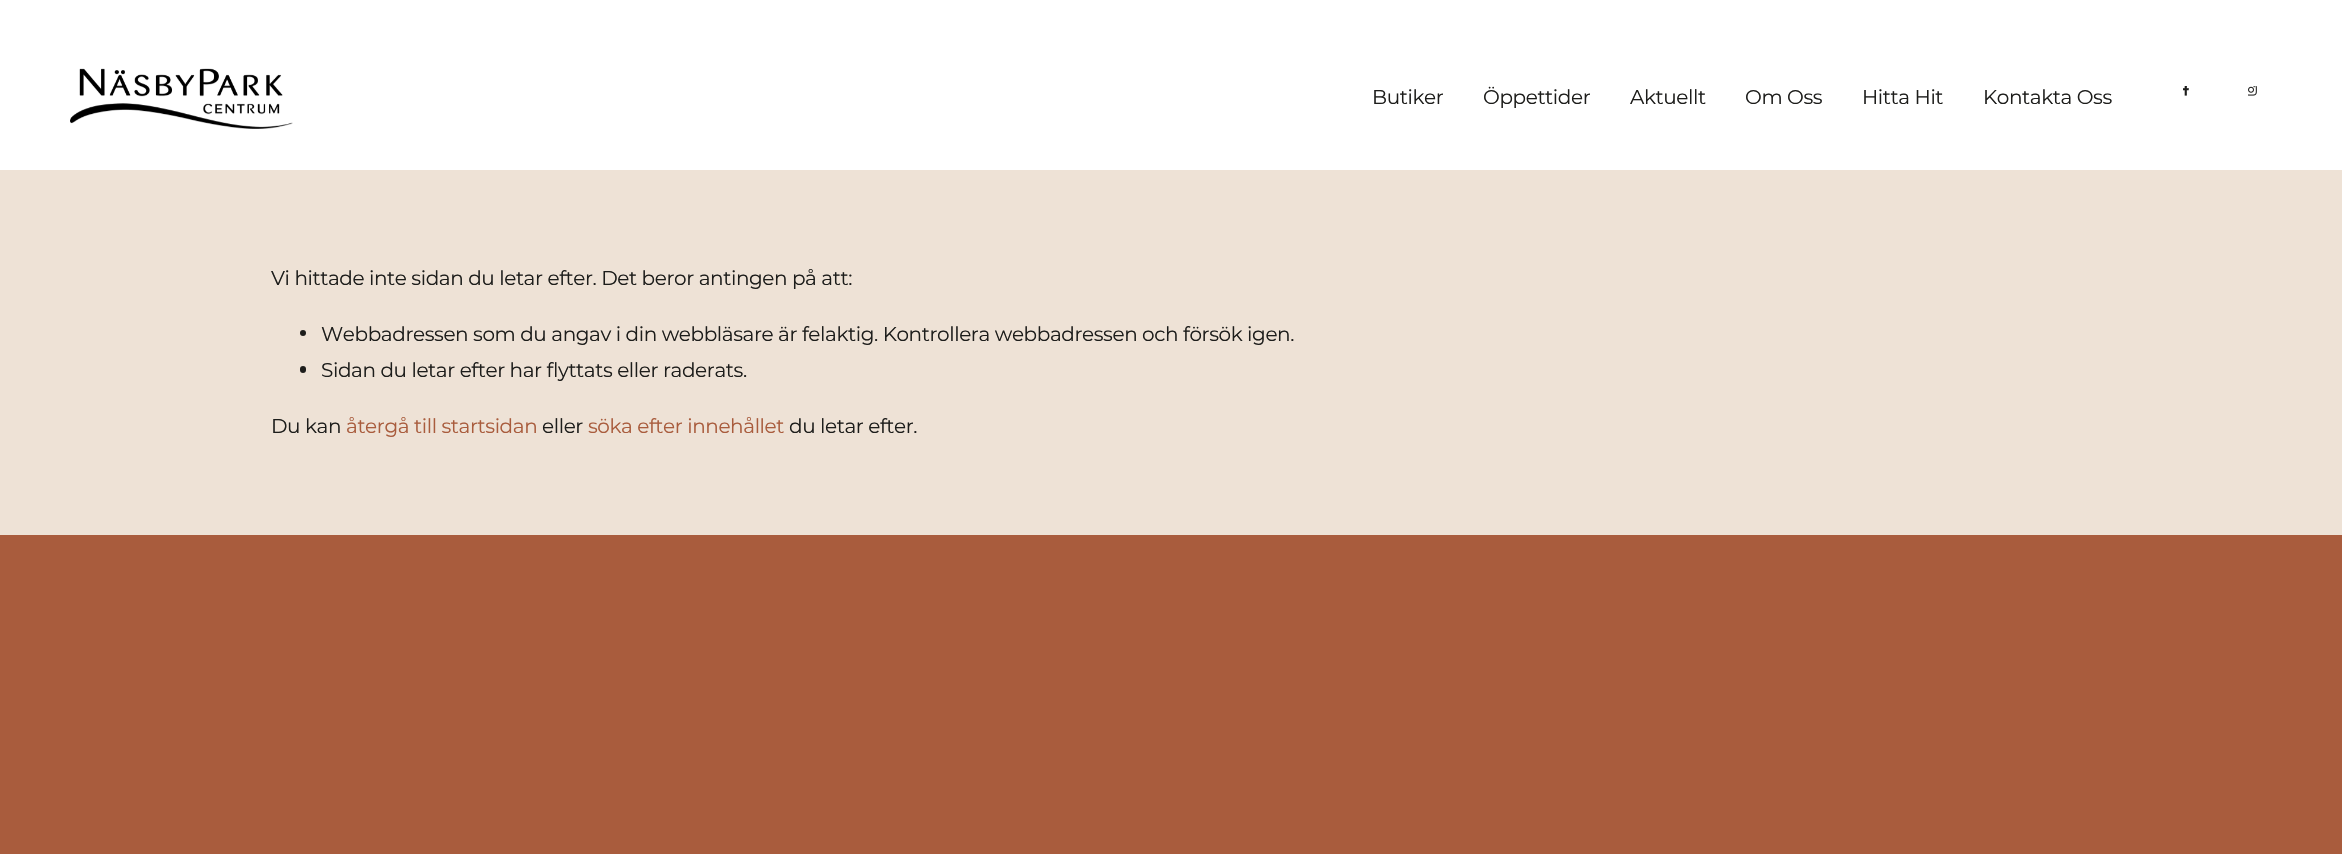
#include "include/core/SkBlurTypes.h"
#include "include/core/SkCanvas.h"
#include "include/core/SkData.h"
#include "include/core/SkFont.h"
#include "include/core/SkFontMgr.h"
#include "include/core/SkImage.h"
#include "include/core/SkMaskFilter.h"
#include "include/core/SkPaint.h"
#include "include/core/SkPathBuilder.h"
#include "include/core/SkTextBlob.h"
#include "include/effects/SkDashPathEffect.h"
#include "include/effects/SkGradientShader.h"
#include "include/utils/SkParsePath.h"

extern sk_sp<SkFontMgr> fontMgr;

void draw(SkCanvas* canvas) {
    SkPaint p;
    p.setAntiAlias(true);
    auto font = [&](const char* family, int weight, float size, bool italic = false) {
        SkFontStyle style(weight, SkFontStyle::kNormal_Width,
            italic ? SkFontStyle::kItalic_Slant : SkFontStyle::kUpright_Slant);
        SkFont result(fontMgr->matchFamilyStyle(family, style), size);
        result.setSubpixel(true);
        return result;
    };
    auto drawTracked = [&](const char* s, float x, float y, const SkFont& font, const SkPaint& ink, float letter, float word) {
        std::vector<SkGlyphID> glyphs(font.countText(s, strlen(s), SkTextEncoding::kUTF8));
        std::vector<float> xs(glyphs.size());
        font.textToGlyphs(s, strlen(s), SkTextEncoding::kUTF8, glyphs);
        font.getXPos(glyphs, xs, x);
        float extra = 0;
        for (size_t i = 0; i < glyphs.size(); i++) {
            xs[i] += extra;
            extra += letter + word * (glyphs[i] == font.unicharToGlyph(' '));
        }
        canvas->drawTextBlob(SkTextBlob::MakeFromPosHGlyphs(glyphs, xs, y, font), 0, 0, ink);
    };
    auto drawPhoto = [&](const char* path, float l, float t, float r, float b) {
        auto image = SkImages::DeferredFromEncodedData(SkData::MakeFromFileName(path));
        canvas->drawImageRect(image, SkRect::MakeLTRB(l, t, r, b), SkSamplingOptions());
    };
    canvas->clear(0xFFEEE2D6);
    p.setColor(0xFFFFFFFF);
    canvas->drawRect(SkRect::MakeLTRB(0, 0, 2342, 170), p);
    drawPhoto("media/1.png", 70, 68, 293, 129);
    auto font1 = font("Montserrat", 400, 20);
    p.setColor(0xFF1D1D1B);
    {
        const struct { const char* s; float x, y; } items[] = {
            {"Butiker", 1372, 104},
            {"Öppettider", 1483, 104},
            {"Aktuellt", 1630, 104},
            {"Om Oss", 1745, 104},
            {"Hitta Hit", 1862, 104},
            {"Kontakta Oss", 1983, 104},
        };
        for (auto [s, x, y] : items) {
            drawTracked(s, x, y, font1, p, -0.4f, 0);
        }
    }
    drawPhoto("media/2.png", 2183, 86, 2189, 96);
    drawPhoto("media/3.png", 2248, 86, 2257, 96);
    drawTracked("Vi hittade inte sidan du letar efter. Det beror antingen på att:", 271, 285, font1, p, -0.4f, 0);
    canvas->drawCircle(303, 333, 3, p);
    drawTracked("Webbadressen som du angav i din webbläsare är felaktig. Kontrollera webbadressen och försök igen.", 321, 341, font1, p, -0.4f, 0);
    canvas->drawRoundRect(SkRect::MakeLTRB(300, 366, 306, 373), 3, 3, p);
    drawTracked("Sidan du letar efter har flyttats eller raderats.", 321, 377, font1, p, -0.4f, 0);
    drawTracked("Du kan", 271, 433, font1, p, -0.4f, 0);
    p.setColor(0xFFA95C3D);
    drawTracked("återgå till startsidan", 346, 433, font1, p, -0.4f, 0);
    p.setColor(0xFF1D1D1B);
    drawTracked("eller", 542, 433, font1, p, -0.4f, 0);
    p.setColor(0xFFA95C3D);
    drawTracked("söka efter innehållet", 588, 433, font1, p, -0.4f, 0);
    p.setColor(0xFF1D1D1B);
    drawTracked("du letar efter.", 789, 433, font1, p, -0.4f, 0);
    p.setColor(0xFFA95C3D);
    canvas->drawRect(SkRect::MakeLTRB(0, 535, 2342, 854), p);
}
